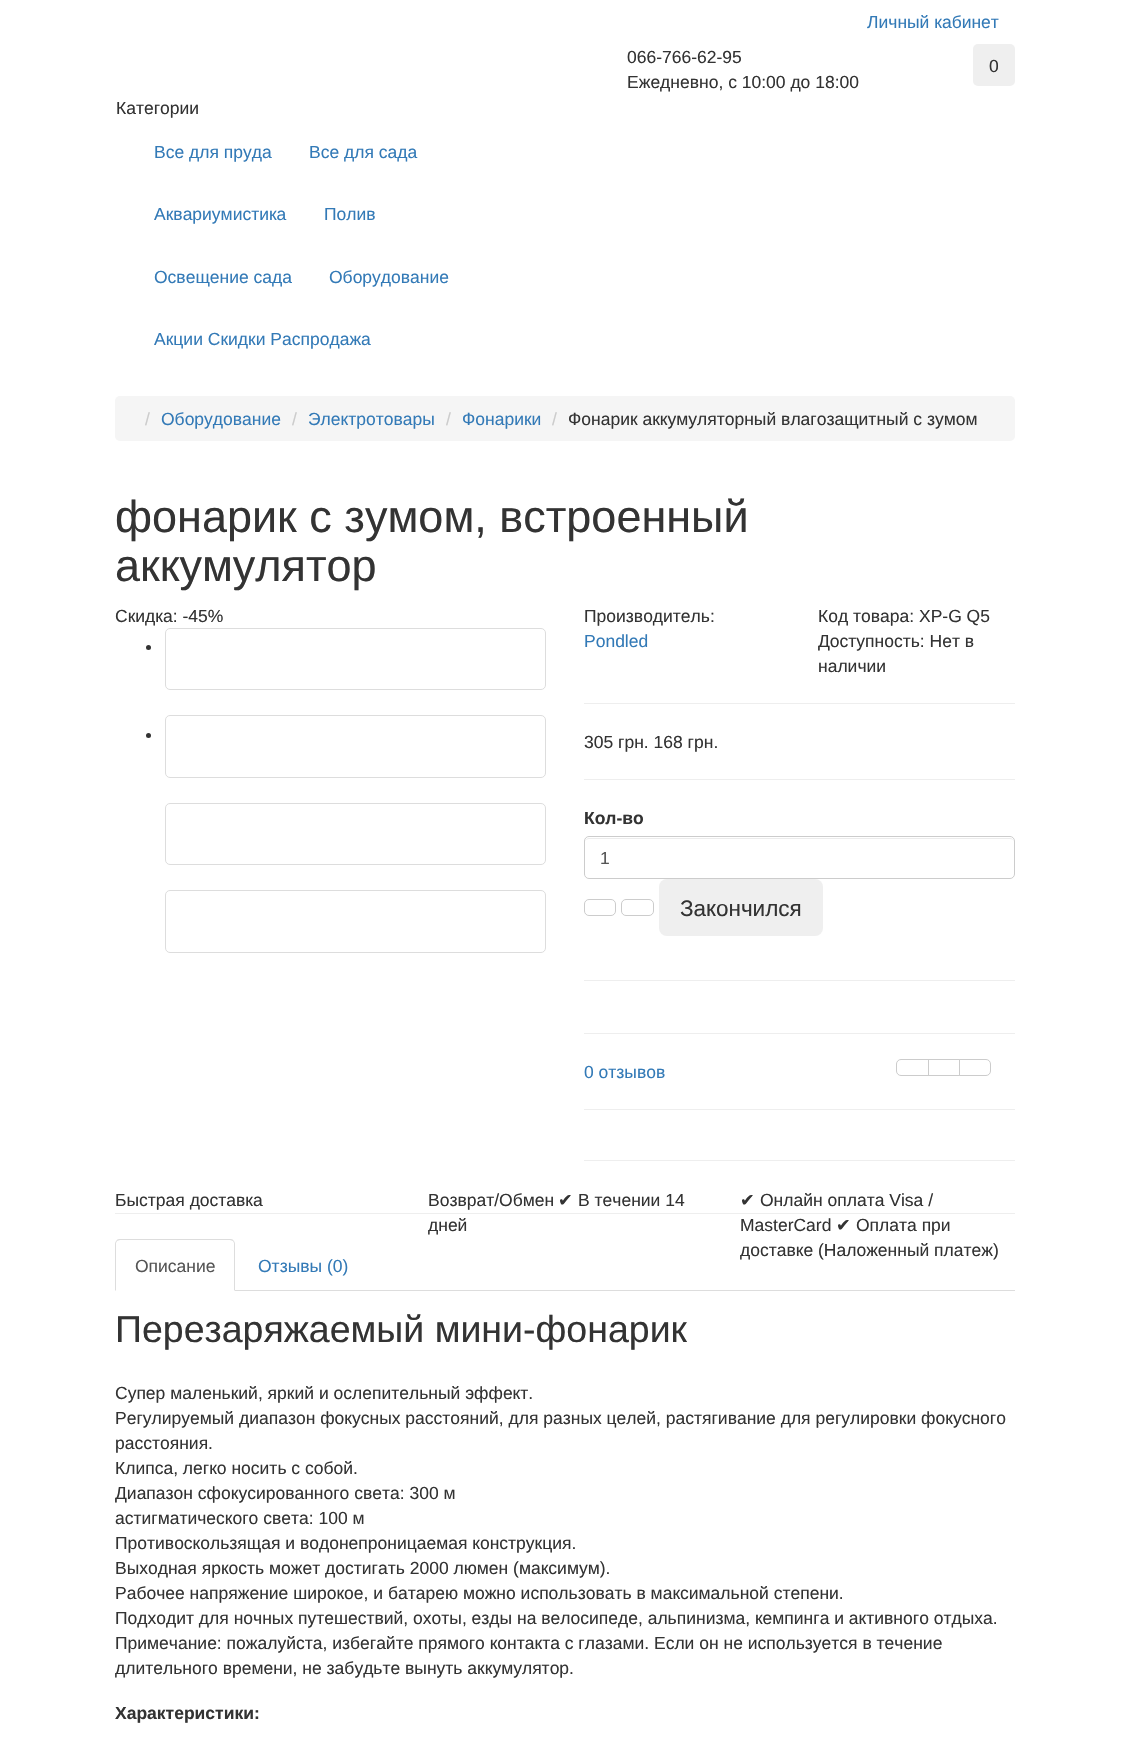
#include "include/core/SkBlurTypes.h"
#include "include/core/SkCanvas.h"
#include "include/core/SkData.h"
#include "include/core/SkFont.h"
#include "include/core/SkFontMgr.h"
#include "include/core/SkImage.h"
#include "include/core/SkMaskFilter.h"
#include "include/core/SkPaint.h"
#include "include/core/SkPathBuilder.h"
#include "include/core/SkTextBlob.h"
#include "include/effects/SkDashPathEffect.h"
#include "include/effects/SkGradientShader.h"
#include "include/utils/SkParsePath.h"

extern sk_sp<SkFontMgr> fontMgr;

void draw(SkCanvas* canvas) {
    SkPaint p;
    p.setAntiAlias(true);
    auto font = [&](const char* family, int weight, float size, bool italic = false) {
        SkFontStyle style(weight, SkFontStyle::kNormal_Width,
            italic ? SkFontStyle::kItalic_Slant : SkFontStyle::kUpright_Slant);
        SkFont result(fontMgr->matchFamilyStyle(family, style), size);
        result.setSubpixel(true);
        return result;
    };
    canvas->clear(0xFFFFFFFF);
    auto font1 = font("Liberation Sans", 400, 17.5f);
    p.setColor(0xFF337AB7);
    canvas->drawString("Личный кабинет", 867, 28, font1, p);
    p.setColor(0xFF333333);
    canvas->drawString("066-766-62-95", 627, 63, font1, p);
    canvas->drawString("Ежедневно, с 10:00 до 18:00", 627, 88, font1, p);
    p.setColor(0xFFEFEFEF);
    canvas->drawRoundRect(SkRect::MakeLTRB(973, 44, 1015, 86), 5, 5, p);
    p.setColor(0xFF333333);
    canvas->drawString("0", 989, 72, font1, p);
    canvas->drawString("Категории", 116, 114, font1, p);
    p.setColor(0xFF337AB7);
    {
        const struct { const char* s; float x, y; } items[] = {
            {"Все для пруда", 154, 158},
            {"Все для сада", 309, 158},
            {"Аквариумистика", 154, 220},
            {"Полив", 324, 220},
            {"Освещение сада", 154, 283},
            {"Оборудование", 329, 283},
            {"Акции Скидки Распродажа", 154, 345},
        };
        for (auto [s, x, y] : items) {
            canvas->drawString(s, x, y, font1, p);
        }
    }
    p.setColor(0xFFF5F5F5);
    canvas->drawRoundRect(SkRect::MakeLTRB(115, 396, 1015, 441), 5, 5, p);
    p.setColor(0xFFCCCCCC);
    canvas->drawString("/", 145, 425, font1, p);
    p.setColor(0xFF337AB7);
    canvas->drawString("Оборудование", 161, 425, font1, p);
    p.setColor(0xFFCCCCCC);
    canvas->drawString("/", 292, 425, font1, p);
    p.setColor(0xFF337AB7);
    canvas->drawString("Электротовары", 308, 425, font1, p);
    p.setColor(0xFFCCCCCC);
    canvas->drawString("/", 446, 425, font1, p);
    p.setColor(0xFF337AB7);
    canvas->drawString("Фонарики", 462, 425, font1, p);
    p.setColor(0xFFCCCCCC);
    canvas->drawString("/", 552, 425, font1, p);
    p.setColor(0xFF333333);
    canvas->drawString("Фонарик аккумуляторный влагозащитный с зумом", 568, 425, font1, p);
    auto font2 = font("Liberation Sans", 400, 45);
    canvas->drawString("фонарик с зумом, встроенный", 115, 532, font2, p);
    canvas->drawString("аккумулятор", 115, 581, font2, p);
    canvas->drawString("Скидка: -45%", 115, 622, font1, p);
    canvas->drawCircle(148.5f, 647.5f, 2.5f, p);
    p.setStyle(SkPaint::kStroke_Style);
    p.setStrokeWidth(1);
    p.setColor(0xFFDDDDDD);
    canvas->drawRoundRect(SkRect::MakeLTRB(165.5f, 628.5f, 545.5f, 689.5f), 4.5f, 4.5f, p);
    p.setStyle(SkPaint::kFill_Style);
    p.setColor(0xFF333333);
    canvas->drawCircle(148.5f, 735.5f, 2.5f, p);
    p.setStyle(SkPaint::kStroke_Style);
    p.setColor(0xFFDDDDDD);
    canvas->drawRoundRect(SkRect::MakeLTRB(165.5f, 715.5f, 545.5f, 777.5f), 4.5f, 4.5f, p);
    canvas->drawRoundRect(SkRect::MakeLTRB(165.5f, 803.5f, 545.5f, 864.5f), 4.5f, 4.5f, p);
    canvas->drawRoundRect(SkRect::MakeLTRB(165.5f, 890.5f, 545.5f, 952.5f), 4.5f, 4.5f, p);
    p.setStyle(SkPaint::kFill_Style);
    p.setColor(0xFF333333);
    canvas->drawString("Производитель:", 584, 622, font1, p);
    p.setColor(0xFF337AB7);
    canvas->drawString("Pondled", 584, 647, font1, p);
    p.setColor(0xFF333333);
    {
        const struct { const char* s; float x, y; } items[] = {
            {"Код товара: XP-G Q5", 818, 622},
            {"Доступность: Нет в", 818, 647},
            {"наличии", 818, 672},
        };
        for (auto [s, x, y] : items) {
            canvas->drawString(s, x, y, font1, p);
        }
    }
    p.setColor(0xFFEEEEEE);
    canvas->drawRect(SkRect::MakeLTRB(584, 703, 1015, 704), p);
    p.setColor(0xFF333333);
    canvas->drawString("305 грн. 168 грн.", 584, 748, font1, p);
    p.setColor(0xFFEEEEEE);
    canvas->drawRect(SkRect::MakeLTRB(584, 779, 1015, 780), p);
    auto font3 = font("Liberation Sans", 700, 17.5f);
    p.setColor(0xFF333333);
    canvas->drawString("Кол-во", 584, 824, font3, p);
    p.setColor(0xFFECECEC);
    canvas->drawPath(SkPathBuilder().moveTo(589, 839).lineTo(1010, 839).cubicTo(1012, 839, 1014, 840, 1014, 842).cubicTo(1014, 840, 1012, 838, 1010, 838).lineTo(589, 838).cubicTo(587, 838, 585, 840, 585, 842).cubicTo(585, 840, 587, 839, 589, 839).close().detach(), p);
    p.setStyle(SkPaint::kStroke_Style);
    p.setColor(0xFFCCCCCC);
    canvas->drawRoundRect(SkRect::MakeLTRB(584.5f, 836.5f, 1014.5f, 878.5f), 4.5f, 4.5f, p);
    p.setStyle(SkPaint::kFill_Style);
    p.setColor(0xFF555555);
    canvas->drawString("1", 600, 864, font1, p);
    p.setStyle(SkPaint::kStroke_Style);
    p.setColor(0xFFCCCCCC);
    canvas->drawRoundRect(SkRect::MakeLTRB(584.5f, 899.5f, 615.5f, 915.5f), 4.5f, 4.5f, p);
    canvas->drawRoundRect(SkRect::MakeLTRB(621.5f, 899.5f, 653.5f, 915.5f), 4.5f, 4.5f, p);
    p.setStyle(SkPaint::kFill_Style);
    p.setColor(0xFFEFEFEF);
    canvas->drawRoundRect(SkRect::MakeLTRB(659, 879, 823, 936), 8, 8, p);
    auto font4 = font("Liberation Sans", 400, 22.5f);
    p.setColor(0xFF333333);
    canvas->drawString("Закончился", 680, 916, font4, p);
    p.setColor(0xFFEEEEEE);
    canvas->drawRect(SkRect::MakeLTRB(584, 980, 1015, 981), p);
    canvas->drawRect(SkRect::MakeLTRB(584, 1033, 1015, 1034), p);
    p.setColor(0xFF337AB7);
    canvas->drawString("0 отзывов", 584, 1078, font1, p);
    p.setStyle(SkPaint::kStroke_Style);
    p.setColor(0xFFCCCCCC);
    canvas->drawPath(SkPathBuilder().moveTo(901, 1059.5f).lineTo(928.5f, 1059.5f).lineTo(928.5f, 1075.5f).lineTo(901, 1075.5f).cubicTo(898.5f, 1075.5f, 896.5f, 1073.5f, 896.5f, 1071).lineTo(896.5f, 1064).cubicTo(896.5f, 1061.5f, 898.5f, 1059.5f, 901, 1059.5f).close().detach(), p);
    canvas->drawRect(SkRect::MakeLTRB(928.5f, 1059.5f, 959.5f, 1075.5f), p);
    p.setStyle(SkPaint::kFill_Style);
    p.setColor(0xFFFFFFFF);
    canvas->drawPath(SkPathBuilder().moveTo(959.5f, 1059.5f).lineTo(986, 1059.5f).cubicTo(988.5f, 1059.5f, 990.5f, 1061.5f, 990.5f, 1064).lineTo(990.5f, 1071).cubicTo(990.5f, 1073.5f, 988.5f, 1075.5f, 986, 1075.5f).lineTo(959.5f, 1075.5f).close().detach(), p);
    p.setStyle(SkPaint::kStroke_Style);
    p.setColor(0xFFCCCCCC);
    canvas->drawPath(SkPathBuilder().moveTo(959.5f, 1059.5f).lineTo(986, 1059.5f).cubicTo(988.5f, 1059.5f, 990.5f, 1061.5f, 990.5f, 1064).lineTo(990.5f, 1071).cubicTo(990.5f, 1073.5f, 988.5f, 1075.5f, 986, 1075.5f).lineTo(959.5f, 1075.5f).close().detach(), p);
    p.setStyle(SkPaint::kFill_Style);
    p.setColor(0xFFEEEEEE);
    canvas->drawRect(SkRect::MakeLTRB(584, 1109, 1015, 1110), p);
    canvas->drawRect(SkRect::MakeLTRB(584, 1160, 1015, 1161), p);
    p.setColor(0xFF333333);
    canvas->drawString("Быстрая доставка", 115, 1206, font1, p);
    canvas->drawString("Возврат/Обмен", 428, 1206, font1, p);
    auto font5 = font("DejaVu Sans", 400, 17.5f);
    canvas->drawString("✔", 558, 1206, font5, p);
    canvas->drawString("В течении 14", 578, 1206, font1, p);
    canvas->drawString("дней", 428, 1231, font1, p);
    canvas->drawString("✔", 740, 1206, font5, p);
    canvas->drawString("Онлайн оплата Visa /", 760, 1206, font1, p);
    canvas->drawString("MasterCard", 740, 1231, font1, p);
    canvas->drawString("✔", 836, 1231, font5, p);
    canvas->drawString("Оплата при", 856, 1231, font1, p);
    canvas->drawString("доставке (Наложенный платеж)", 740, 1256, font1, p);
    p.setColor(0xFFEEEEEE);
    canvas->drawRect(SkRect::MakeLTRB(115, 1213, 1015, 1214), p);
    p.setColor(0xFFDDDDDD);
    canvas->drawRect(SkRect::MakeLTRB(235, 1290, 1015, 1291), p);
    canvas->drawPath(SkPathBuilder().moveTo(120, 1239).cubicTo(119, 1239, 117, 1239, 117, 1240).lineTo(117, 1241).lineTo(120, 1240).lineTo(230, 1240).lineTo(233, 1241).lineTo(233, 1240).cubicTo(233, 1239, 231, 1239, 230, 1239).close().detach(), p);
    canvas->drawPath(SkPathBuilder().moveTo(233, 1240).cubicTo(234, 1241, 235, 1242, 235, 1244).lineTo(235, 1291).lineTo(234, 1290).lineTo(234, 1243).lineTo(233, 1241).close().detach(), p);
    canvas->drawPath(SkPathBuilder().moveTo(115, 1244).lineTo(115, 1291).lineTo(116, 1290).lineTo(116, 1243).lineTo(117, 1241).lineTo(117, 1240).cubicTo(116, 1241, 115, 1242, 115, 1244).close().detach(), p);
    p.setColor(0xFF555555);
    canvas->drawString("Описание", 135, 1272, font1, p);
    p.setColor(0xFF337AB7);
    canvas->drawString("Отзывы (0)", 258, 1272, font1, p);
    auto font6 = font("Liberation Sans", 400, 37.5f);
    p.setColor(0xFF333333);
    canvas->drawString("Перезаряжаемый мини-фонарик", 115, 1342, font6, p);
    {
        const struct { const char* s; float x, y; } items[] = {
            {"Супер маленький, яркий и ослепительный эффект.", 115, 1399},
            {"Регулируемый диапазон фокусных расстояний, для разных целей, растягивание для регулировки фокусного", 115, 1424},
            {"расстояния.", 115, 1449},
            {"Клипса, легко носить с собой.", 115, 1474},
            {"Диапазон сфокусированного света: 300 м", 115, 1499},
            {"астигматического света: 100 м", 115, 1524},
            {"Противоскользящая и водонепроницаемая конструкция.", 115, 1549},
            {"Выходная яркость может достигать 2000 люмен (максимум).", 115, 1574},
            {"Рабочее напряжение широкое, и батарею можно использовать в максимальной степени.", 115, 1599},
            {"Подходит для ночных путешествий, охоты, езды на велосипеде, альпинизма, кемпинга и активного отдыха.", 115, 1624},
            {"Примечание: пожалуйста, избегайте прямого контакта с глазами. Если он не используется в течение", 115, 1649},
            {"длительного времени, не забудьте вынуть аккумулятор.", 115, 1674},
        };
        for (auto [s, x, y] : items) {
            canvas->drawString(s, x, y, font1, p);
        }
    }
    canvas->drawString("Характеристики:", 115, 1719, font3, p);
}
